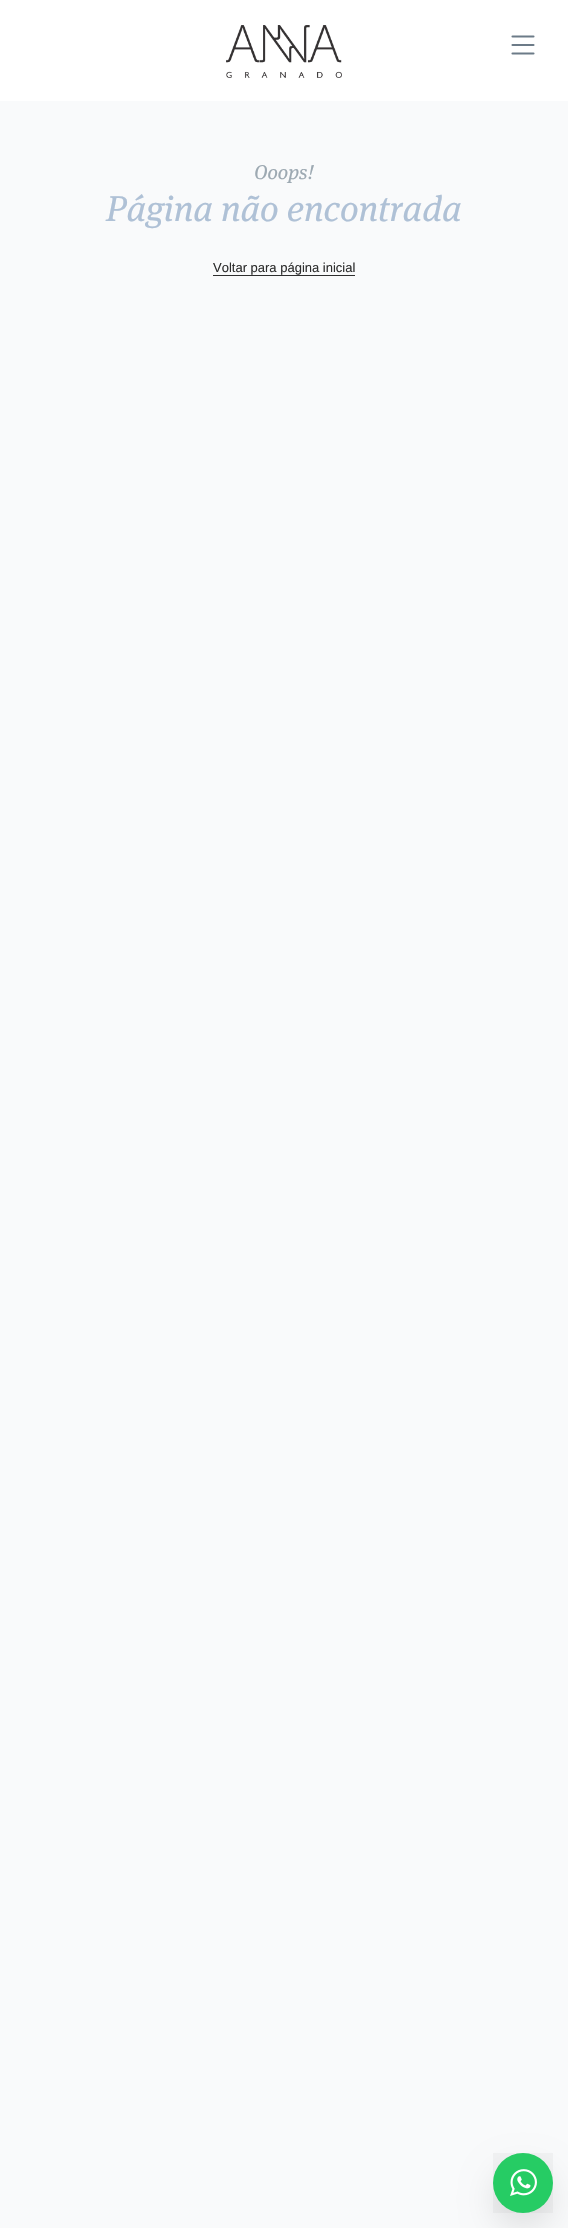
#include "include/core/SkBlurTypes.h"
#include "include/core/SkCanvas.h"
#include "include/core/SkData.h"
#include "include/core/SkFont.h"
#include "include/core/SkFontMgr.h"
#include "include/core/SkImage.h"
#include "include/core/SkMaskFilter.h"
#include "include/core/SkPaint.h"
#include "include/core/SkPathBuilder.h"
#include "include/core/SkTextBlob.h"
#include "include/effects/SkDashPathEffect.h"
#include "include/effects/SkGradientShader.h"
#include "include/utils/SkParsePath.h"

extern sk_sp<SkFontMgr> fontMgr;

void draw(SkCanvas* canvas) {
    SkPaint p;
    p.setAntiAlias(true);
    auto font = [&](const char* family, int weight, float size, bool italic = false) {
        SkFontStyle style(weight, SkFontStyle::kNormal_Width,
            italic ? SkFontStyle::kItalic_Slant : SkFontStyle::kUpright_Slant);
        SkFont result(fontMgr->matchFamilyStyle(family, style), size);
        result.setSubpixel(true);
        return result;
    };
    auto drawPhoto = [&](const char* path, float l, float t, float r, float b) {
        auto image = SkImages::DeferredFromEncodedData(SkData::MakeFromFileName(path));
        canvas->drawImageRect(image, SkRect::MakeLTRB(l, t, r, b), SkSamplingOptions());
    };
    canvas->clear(0xFFF9FAFB);
    p.setColor(0xFFFFFFFF);
    canvas->drawRect(SkRect::MakeLTRB(0, 0, 568, 101), p);
    drawPhoto("media/1.png", 226, 25, 342, 78);
    p.setStyle(SkPaint::kStroke_Style);
    p.setStrokeWidth(2.1f);
    p.setStrokeCap(SkPaint::kRound_Cap);
    p.setColor(0xFF6C7B88);
    canvas->drawPath(SkPathBuilder().moveTo(512.5f, 36.5f).lineTo(533.5f, 36.5f).moveTo(512.5f, 45).lineTo(533.5f, 45).moveTo(512.5f, 53.5f).lineTo(533.5f, 53.5f).detach(), p);
    auto font1 = font("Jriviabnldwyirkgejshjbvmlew", 500, 20, true);
    p.setStyle(SkPaint::kFill_Style);
    p.setColor(0xFF9DA9B2);
    canvas->drawString("Ooops!", 254, 179, font1, p);
    auto font2 = font("Jriviabnldwyirkgejshjbvmlew", 500, 36, true);
    p.setColor(0xFFAFC1D6);
    canvas->drawString("Página não encontrada", 106, 221, font2, p);
    auto font3 = font("Liberation Sans", 400, 13);
    p.setColor(0xFF2E2E2E);
    canvas->drawString("Voltar para página inicial", 213, 272, font3, p);
    canvas->drawRect(SkRect::MakeLTRB(213, 275, 355, 276), p);
    p.setColor(0x1A000000);
    p.setMaskFilter(SkMaskFilter::MakeBlur(kNormal_SkBlurStyle, 16));
    canvas->drawRoundRect(SkRect::MakeLTRB(493, 2169, 553, 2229), 30, 30, p);
    p.setMaskFilter(nullptr);
    p.setColor(0xFF25D366);
    canvas->drawCircle(523, 2183, 30, p);
    p.setColor(0x0A2E2E2E);
    canvas->drawRect(SkRect::MakeLTRB(493, 2153, 553, 2213), p);
    drawPhoto("media/2.png", 510, 2169, 537, 2196);
}
